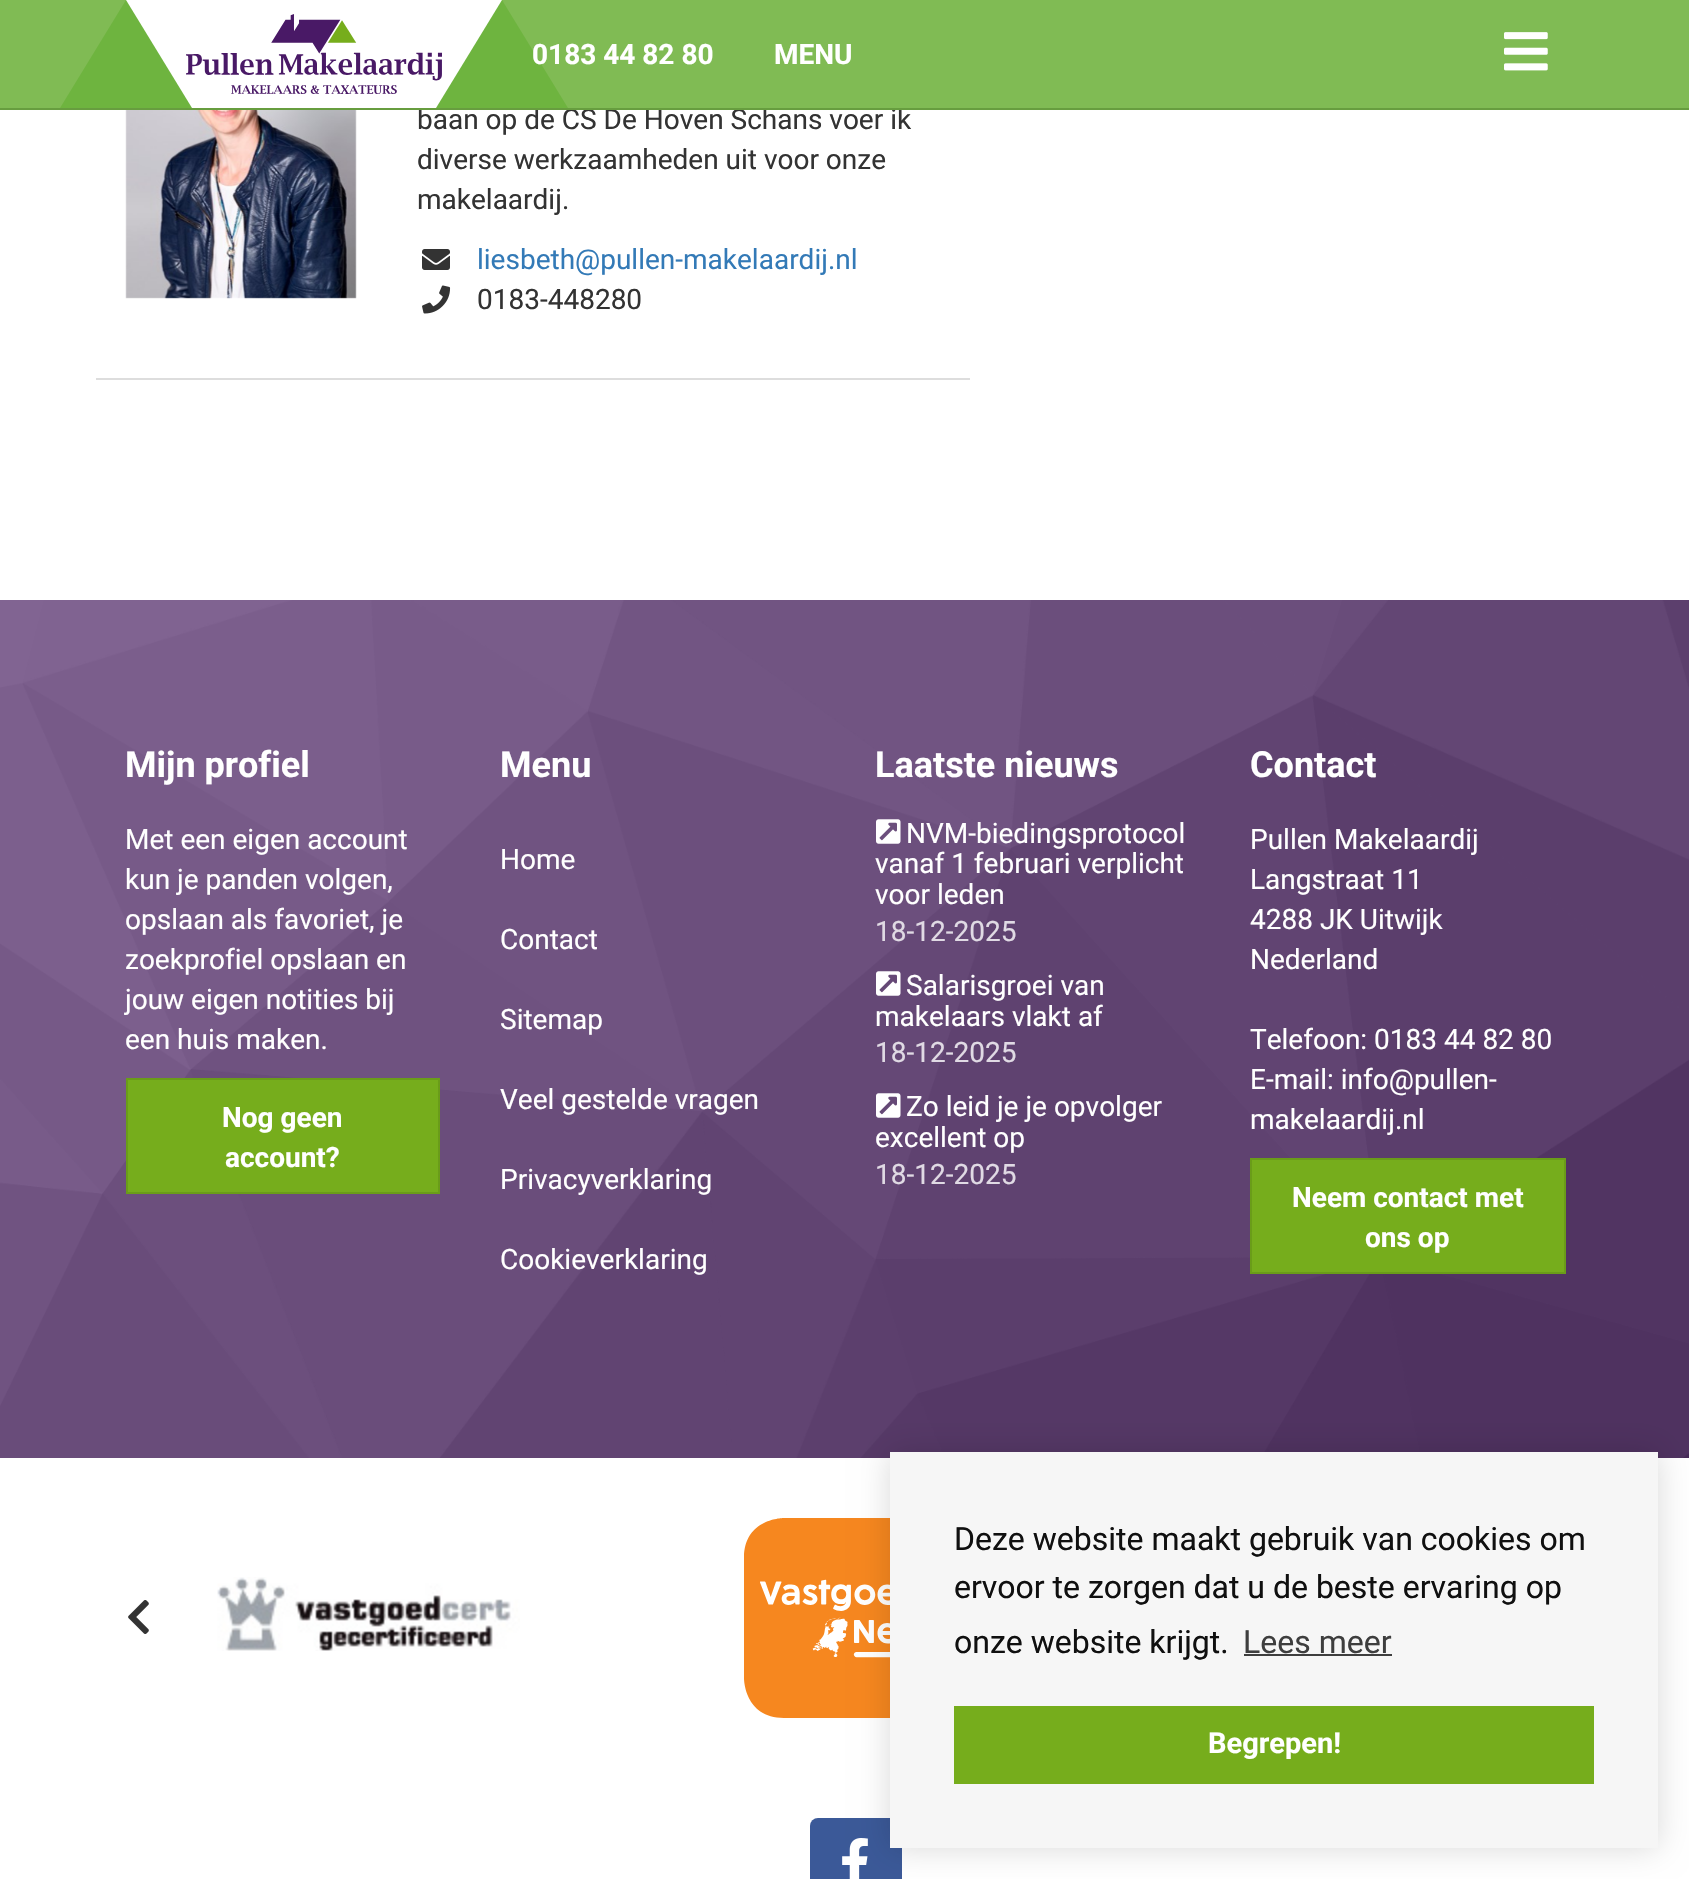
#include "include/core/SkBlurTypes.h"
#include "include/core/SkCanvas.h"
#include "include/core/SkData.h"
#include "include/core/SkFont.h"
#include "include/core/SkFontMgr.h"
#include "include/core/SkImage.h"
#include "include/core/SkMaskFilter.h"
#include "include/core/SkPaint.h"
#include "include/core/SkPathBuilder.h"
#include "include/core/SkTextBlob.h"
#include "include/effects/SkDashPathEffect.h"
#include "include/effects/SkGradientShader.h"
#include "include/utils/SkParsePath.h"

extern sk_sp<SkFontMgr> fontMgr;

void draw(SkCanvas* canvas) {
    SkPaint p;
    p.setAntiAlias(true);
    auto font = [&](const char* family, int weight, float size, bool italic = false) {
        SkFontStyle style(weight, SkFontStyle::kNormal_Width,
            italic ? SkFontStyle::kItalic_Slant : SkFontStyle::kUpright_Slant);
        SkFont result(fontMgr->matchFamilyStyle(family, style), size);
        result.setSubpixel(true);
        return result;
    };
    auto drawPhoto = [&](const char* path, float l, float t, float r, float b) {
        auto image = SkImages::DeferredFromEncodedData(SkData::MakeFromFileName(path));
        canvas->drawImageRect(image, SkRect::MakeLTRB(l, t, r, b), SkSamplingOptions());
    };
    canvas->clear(0xFFFFFFFF);
    p.setColor(0xFF80BB54);
    canvas->drawRect(SkRect::MakeLTRB(0, 0, 1689, 108), p);
    auto font1 = font("Roboto", 400, 28);
    p.setColor(0xFF333333);
    canvas->drawString("baan op de CS De Hoven Schans voer ik", 417, 129, font1, p);
    p.setColor(0xFF679D3F);
    canvas->drawRect(SkRect::MakeLTRB(0, 108, 1689, 110), p);
    p.setColor(0xFFFFFFFF);
    canvas->drawRect(SkRect::MakeLTRB(126, 0, 502, 108), p);
    drawPhoto("media/1.png", 186, 14, 442, 94);
    canvas->save();
    canvas->clipRect(SkRect::MakeLTRB(0, 0, 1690, 108));
    p.setColor(0xFF6EB43F);
    canvas->drawPath(SkPathBuilder().moveTo(346, 360).lineTo(-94, 360).lineTo(126, 0).close().detach(), p);
    canvas->drawPath(SkPathBuilder().moveTo(722, 360).lineTo(282, 360).lineTo(502, 0).close().detach(), p);
    canvas->restore();
    auto font2 = font("Roboto", 700, 28);
    p.setColor(0xFFFFFFFF);
    canvas->drawString("0183 44 82 80", 532, 64, font2, p);
    canvas->drawString("MENU", 774, 64, font2, p);
    drawPhoto("media/2.png", 1504, 32, 1548, 71);
    p.setColor(0xFFDDDDDD);
    canvas->drawRect(SkRect::MakeLTRB(96, 378, 970, 380), p);
    drawPhoto("media/3.png", 125, 110, 357, 299);
    p.setColor(0xFF333333);
    canvas->drawString("diverse werkzaamheden uit voor onze", 417, 169, font1, p);
    canvas->drawString("makelaardij.", 417, 209, font1, p);
    drawPhoto("media/4.png", 422, 249, 450, 270);
    p.setColor(0xFF337AB7);
    canvas->drawString("liesbeth@pullen-makelaardij.nl", 477, 269, font1, p);
    drawPhoto("media/5.png", 422, 285, 451, 314);
    p.setColor(0xFF333333);
    canvas->drawString("0183-448280", 477, 309, font1, p);
    p.setColor(0xFF491966);
    canvas->drawRect(SkRect::MakeLTRB(0, 600, 1689, 1458), p);
    drawPhoto("media/6.png", 0, 600, 1689, 1458);
    auto font3 = font("Roboto", 700, 36);
    p.setColor(0xFFFFFFFF);
    canvas->drawString("Mijn profiel", 125, 777, font3, p);
    {
        const struct { const char* s; float x, y; } items[] = {
            {"Met een eigen account", 125, 849},
            {"kun je panden volgen,", 125, 889},
            {"opslaan als favoriet, je", 125, 929},
            {"zoekprofiel opslaan en", 125, 969},
            {"jouw eigen notities bij", 125, 1009},
            {"een huis maken.", 125, 1049},
        };
        for (auto [s, x, y] : items) {
            canvas->drawString(s, x, y, font1, p);
        }
    }
    p.setColor(0xFF76AD1C);
    canvas->drawRect(SkRect::MakeLTRB(127, 1079, 439, 1193), p);
    p.setStyle(SkPaint::kStroke_Style);
    p.setStrokeWidth(2);
    p.setColor(0xFF6A9C19);
    canvas->drawRect(SkRect::MakeLTRB(127, 1079, 439, 1193), p);
    p.setStyle(SkPaint::kFill_Style);
    p.setColor(0xFFFFFFFF);
    canvas->drawString("Nog geen", 222, 1127, font2, p);
    canvas->drawString("account?", 225, 1167, font2, p);
    canvas->drawString("Menu", 500, 777, font3, p);
    {
        const struct { const char* s; float x, y; } items[] = {
            {"Home", 500, 869},
            {"Contact", 500, 949},
            {"Sitemap", 500, 1029},
            {"Veel gestelde vragen", 500, 1109},
            {"Privacyverklaring", 500, 1189},
            {"Cookieverklaring", 500, 1269},
        };
        for (auto [s, x, y] : items) {
            canvas->drawString(s, x, y, font1, p);
        }
    }
    canvas->drawString("Laatste nieuws", 875, 777, font3, p);
    drawPhoto("media/7.png", 876, 819, 901, 844);
    {
        const struct { const char* s; float x, y; } items[] = {
            {"NVM-biedingsprotocol", 906, 843},
            {"vanaf 1 februari verplicht", 875, 873},
            {"voor leden", 875, 904},
        };
        for (auto [s, x, y] : items) {
            canvas->drawString(s, x, y, font1, p);
        }
    }
    p.setColor(0xFFE0DAE4);
    canvas->drawString("18-12-2025", 875, 941, font1, p);
    drawPhoto("media/8.png", 876, 971, 901, 996);
    p.setColor(0xFFFFFFFF);
    canvas->drawString("Salarisgroei van", 906, 995, font1, p);
    canvas->drawString("makelaars vlakt af", 875, 1026, font1, p);
    p.setColor(0xFFE0DAE4);
    canvas->drawString("18-12-2025", 875, 1062, font1, p);
    drawPhoto("media/8.png", 876, 1093, 901, 1118);
    p.setColor(0xFFFFFFFF);
    canvas->drawString("Zo leid je je opvolger", 906, 1116, font1, p);
    canvas->drawString("excellent op", 875, 1147, font1, p);
    p.setColor(0xFFE0DAE4);
    canvas->drawString("18-12-2025", 875, 1184, font1, p);
    p.setColor(0xFFFFFFFF);
    canvas->drawString("Contact", 1250, 777, font3, p);
    {
        const struct { const char* s; float x, y; } items[] = {
            {"Pullen Makelaardij", 1250, 849},
            {"Langstraat 11", 1250, 889},
            {"4288 JK Uitwijk", 1250, 929},
            {"Nederland", 1250, 969},
            {"Telefoon: 0183 44 82 80", 1250, 1049},
            {"E-mail: info@pullen-", 1250, 1089},
            {"makelaardij.nl", 1250, 1129},
        };
        for (auto [s, x, y] : items) {
            canvas->drawString(s, x, y, font1, p);
        }
    }
    p.setColor(0xFF76AD1C);
    canvas->drawRect(SkRect::MakeLTRB(1251, 1159, 1565, 1273), p);
    p.setStyle(SkPaint::kStroke_Style);
    p.setColor(0xFF6A9C19);
    canvas->drawRect(SkRect::MakeLTRB(1251, 1159, 1565, 1273), p);
    p.setStyle(SkPaint::kFill_Style);
    p.setColor(0xFFFFFFFF);
    canvas->drawString("Neem contact met", 1292, 1207, font2, p);
    canvas->drawString("ons op", 1365, 1247, font2, p);
    drawPhoto("media/9.png", 128, 1600, 149, 1634);
    drawPhoto("media/10.png", 217, 1577, 520, 1651);
    drawPhoto("media/11.png", 744, 1518, 890, 1718);
    p.setColor(0xFF3B5998);
    canvas->drawRoundRect(SkRect::MakeLTRB(810, 1818, 902, 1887), 8, 8, p);
    drawPhoto("media/12.png", 842, 1838, 868, 1879);
    p.setColor(0x26000000);
    p.setMaskFilter(SkMaskFilter::MakeBlur(kNormal_SkBlurStyle, 15));
    canvas->drawRect(SkRect::MakeLTRB(890, 1452, 1658, 1848), p);
    p.setMaskFilter(nullptr);
    p.setColor(0xFFF6F6F6);
    canvas->drawRect(SkRect::MakeLTRB(890, 1452, 1658, 1848), p);
    auto font4 = font("Roboto", 400, 32);
    p.setColor(0xFF101010);
    {
        const struct { const char* s; float x, y; } items[] = {
            {"Deze website maakt gebruik van cookies om", 954, 1550},
            {"ervoor te zorgen dat u de beste ervaring op", 954, 1598},
            {"onze website krijgt.", 954, 1653},
        };
        for (auto [s, x, y] : items) {
            canvas->drawString(s, x, y, font4, p);
        }
    }
    p.setColor(0xFF3E3E3E);
    canvas->drawString("Lees meer", 1243, 1653, font4, p);
    canvas->drawRect(SkRect::MakeLTRB(1244, 1654, 1392, 1656), p);
    p.setColor(0xFF76AD1C);
    canvas->drawRect(SkRect::MakeLTRB(954, 1706, 1594, 1784), p);
    auto font5 = font("Roboto", 700, 29);
    p.setColor(0xFFFFFFFF);
    canvas->drawString("Begrepen!", 1208, 1753, font5, p);
}
